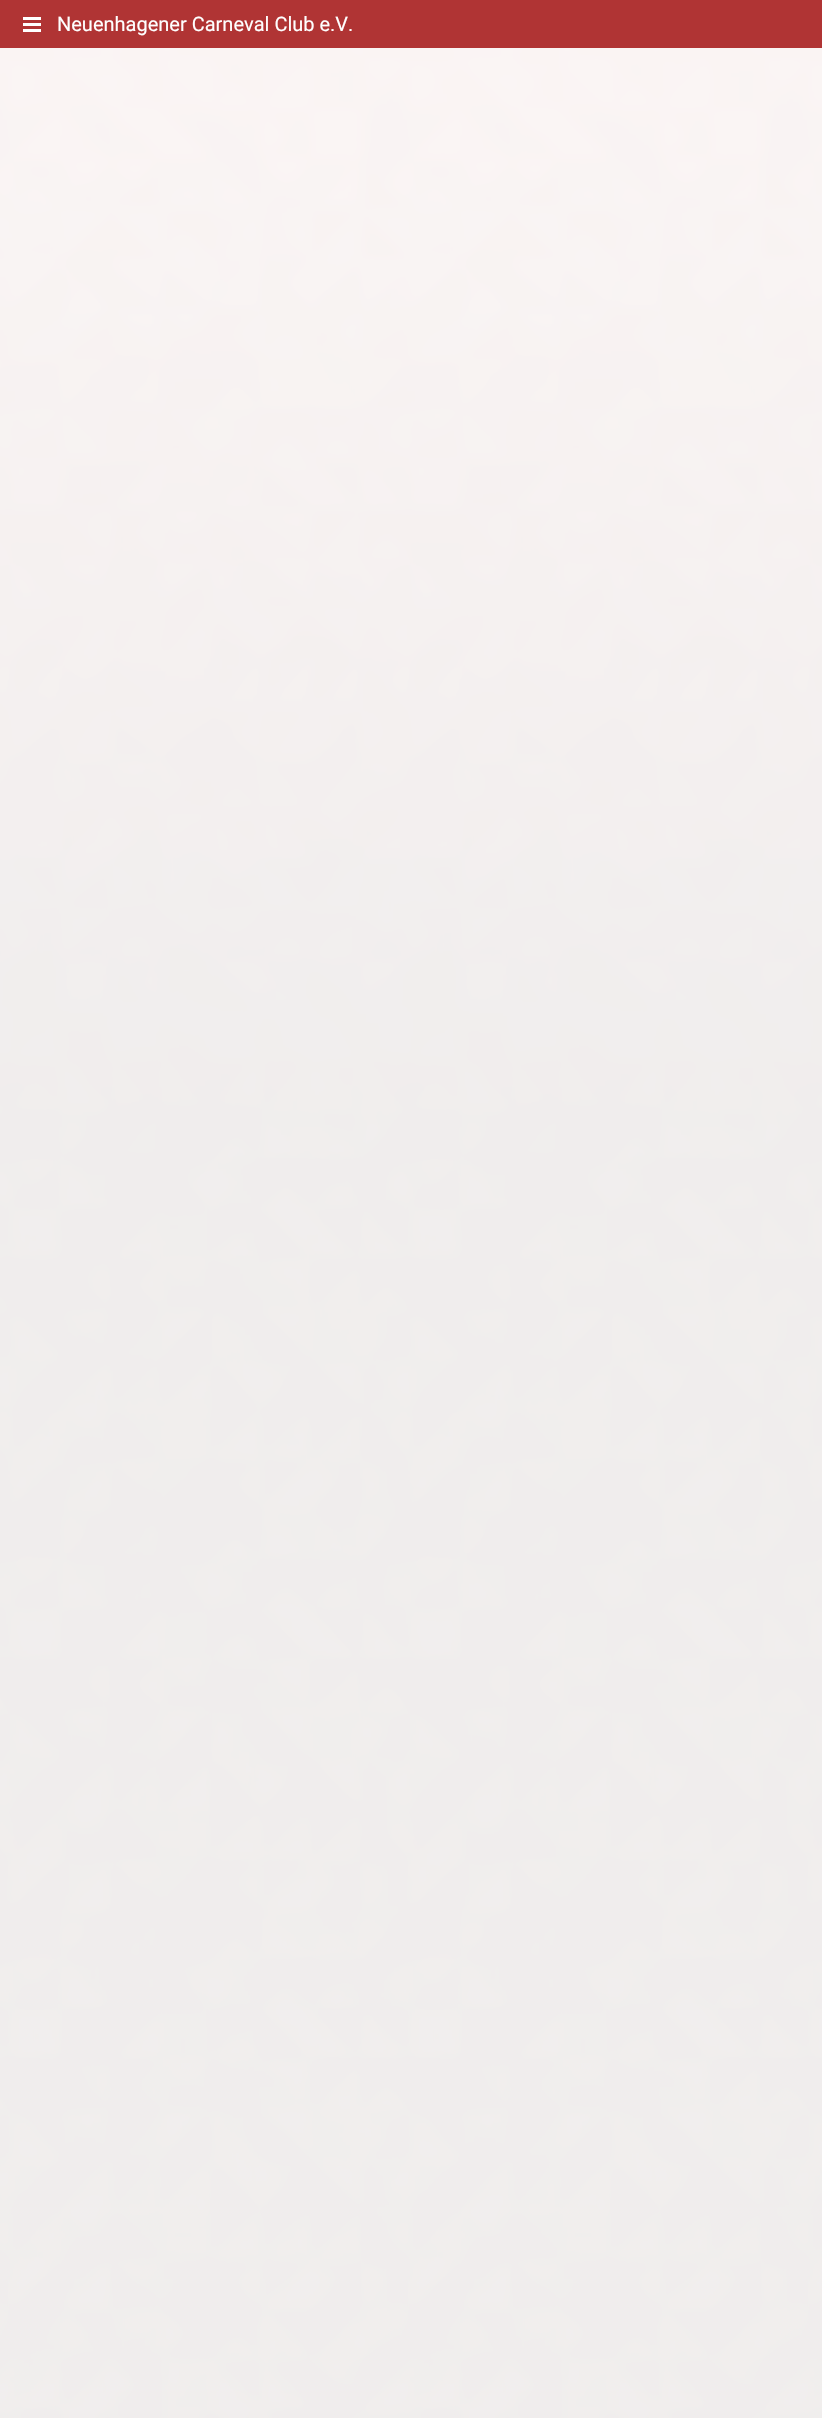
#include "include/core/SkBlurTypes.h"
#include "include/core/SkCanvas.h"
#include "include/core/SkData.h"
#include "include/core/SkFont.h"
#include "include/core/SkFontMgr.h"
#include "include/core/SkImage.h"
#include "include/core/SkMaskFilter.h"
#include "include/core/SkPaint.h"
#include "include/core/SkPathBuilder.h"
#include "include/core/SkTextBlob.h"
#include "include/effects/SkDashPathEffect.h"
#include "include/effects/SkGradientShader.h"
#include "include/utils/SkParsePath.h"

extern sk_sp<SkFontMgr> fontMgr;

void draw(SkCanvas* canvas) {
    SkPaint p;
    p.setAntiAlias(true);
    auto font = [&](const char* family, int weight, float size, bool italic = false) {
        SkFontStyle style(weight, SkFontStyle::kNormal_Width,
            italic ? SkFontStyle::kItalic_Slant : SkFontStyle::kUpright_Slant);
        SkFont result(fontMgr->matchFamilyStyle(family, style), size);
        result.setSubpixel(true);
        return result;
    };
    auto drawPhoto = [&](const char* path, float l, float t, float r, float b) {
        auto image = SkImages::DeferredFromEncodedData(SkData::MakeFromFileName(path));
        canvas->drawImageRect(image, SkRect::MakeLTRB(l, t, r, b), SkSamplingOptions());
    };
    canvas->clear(0xFFFFFFFF);
    {
        const struct { float l, t, r, b; SkColor color; } items[] = {
            {0, 0, 822, 48, 0xFFB03434},
            {23, 17, 41, 20, 0xFFFFFFFF},
            {23, 23, 41, 26, 0xFFFFFFFF},
            {23, 29, 41, 32, 0xFFFFFFFF},
        };
        for (auto [l, t, r, b, color] : items) {
            p.setColor(color);
            canvas->drawRect(SkRect::MakeLTRB(l, t, r, b), p);
        }
    }
    auto font1 = font("Roboto", 400, 20);
    canvas->drawString("Neuenhagener Carneval Club e.V.", 57, 31, font1, p);
    drawPhoto("media/1.png", 0, 48, 822, 2418);
}
